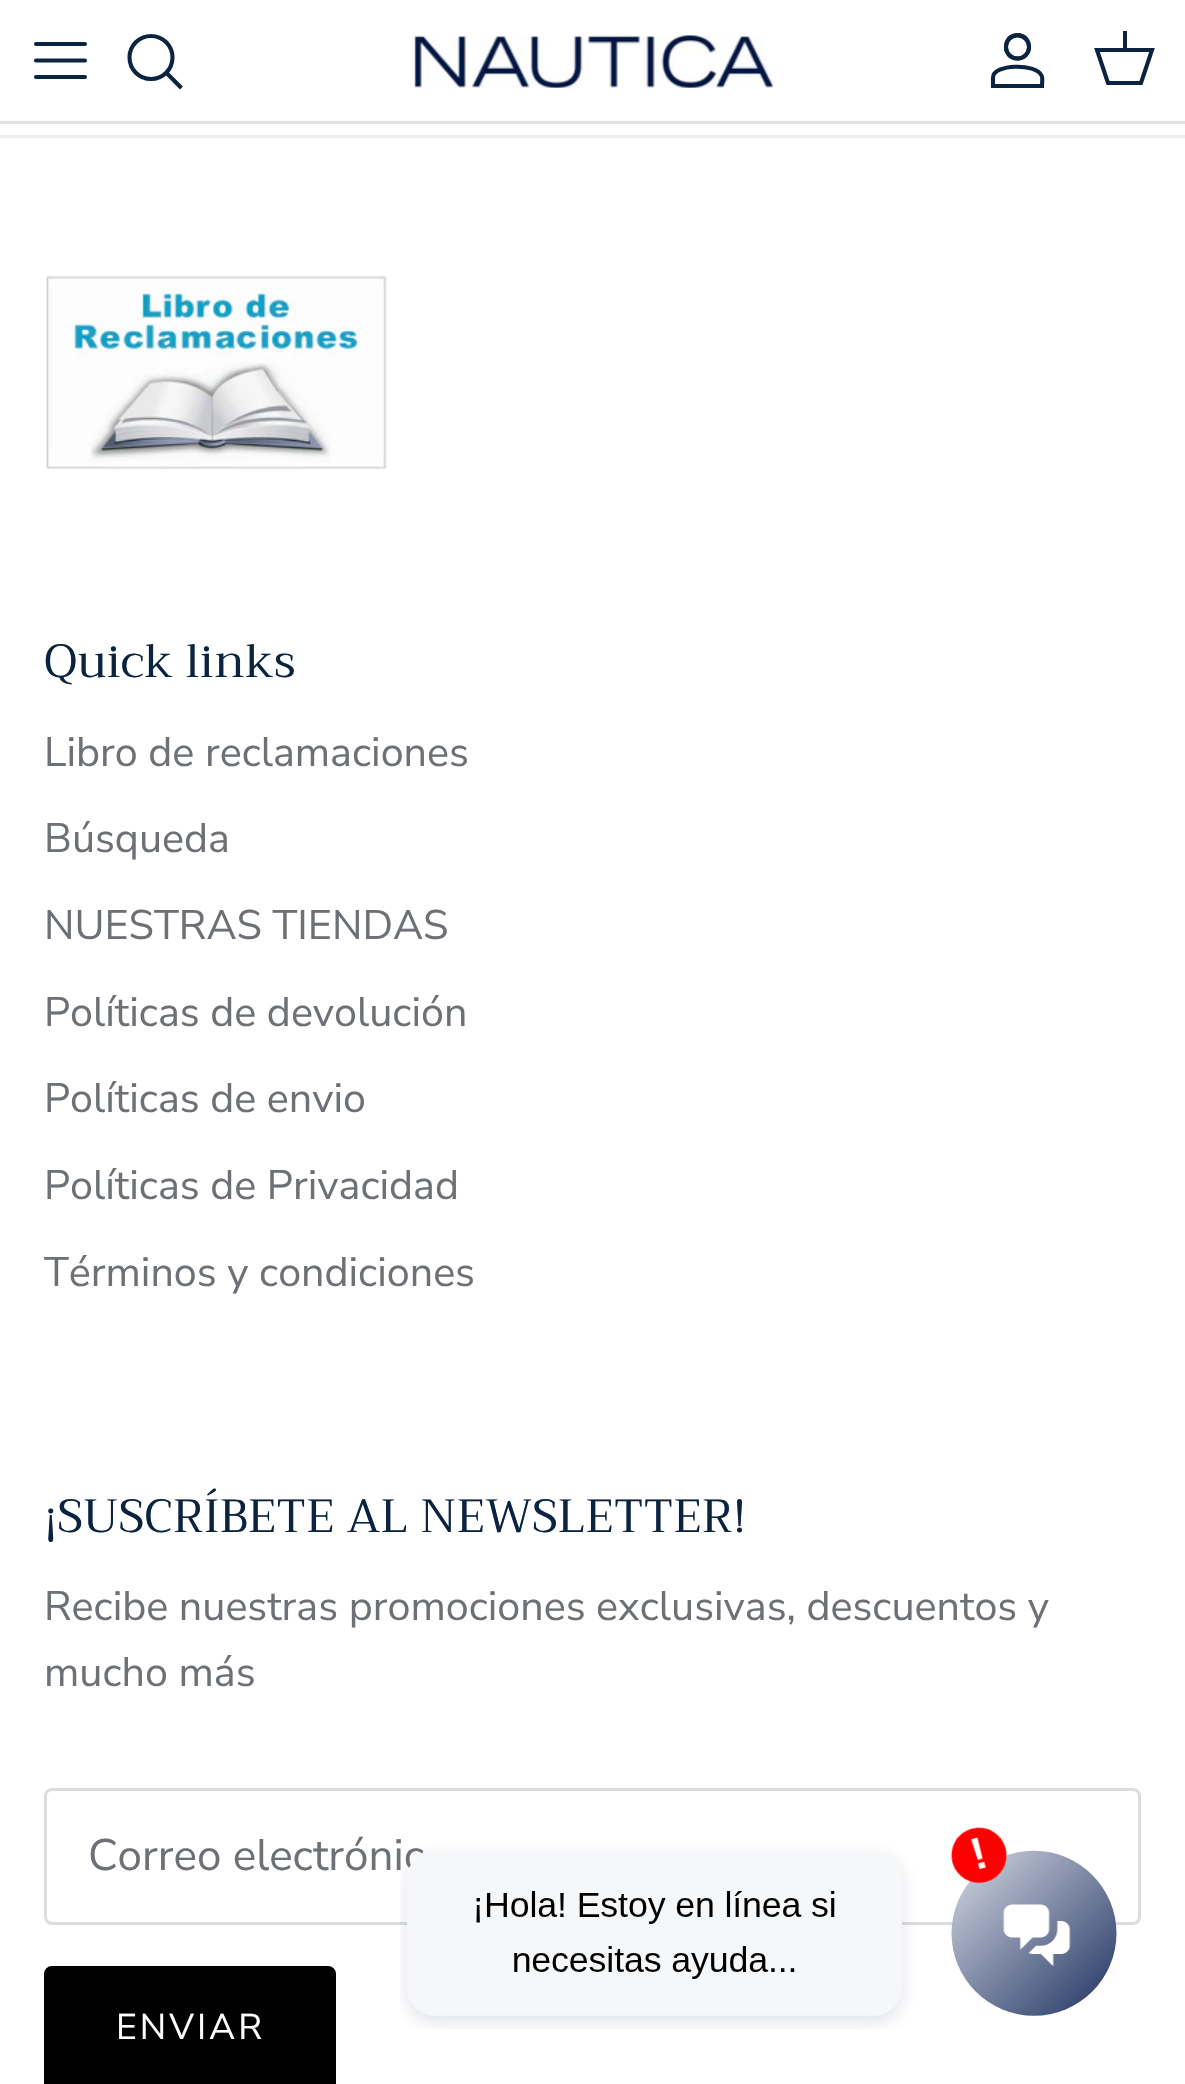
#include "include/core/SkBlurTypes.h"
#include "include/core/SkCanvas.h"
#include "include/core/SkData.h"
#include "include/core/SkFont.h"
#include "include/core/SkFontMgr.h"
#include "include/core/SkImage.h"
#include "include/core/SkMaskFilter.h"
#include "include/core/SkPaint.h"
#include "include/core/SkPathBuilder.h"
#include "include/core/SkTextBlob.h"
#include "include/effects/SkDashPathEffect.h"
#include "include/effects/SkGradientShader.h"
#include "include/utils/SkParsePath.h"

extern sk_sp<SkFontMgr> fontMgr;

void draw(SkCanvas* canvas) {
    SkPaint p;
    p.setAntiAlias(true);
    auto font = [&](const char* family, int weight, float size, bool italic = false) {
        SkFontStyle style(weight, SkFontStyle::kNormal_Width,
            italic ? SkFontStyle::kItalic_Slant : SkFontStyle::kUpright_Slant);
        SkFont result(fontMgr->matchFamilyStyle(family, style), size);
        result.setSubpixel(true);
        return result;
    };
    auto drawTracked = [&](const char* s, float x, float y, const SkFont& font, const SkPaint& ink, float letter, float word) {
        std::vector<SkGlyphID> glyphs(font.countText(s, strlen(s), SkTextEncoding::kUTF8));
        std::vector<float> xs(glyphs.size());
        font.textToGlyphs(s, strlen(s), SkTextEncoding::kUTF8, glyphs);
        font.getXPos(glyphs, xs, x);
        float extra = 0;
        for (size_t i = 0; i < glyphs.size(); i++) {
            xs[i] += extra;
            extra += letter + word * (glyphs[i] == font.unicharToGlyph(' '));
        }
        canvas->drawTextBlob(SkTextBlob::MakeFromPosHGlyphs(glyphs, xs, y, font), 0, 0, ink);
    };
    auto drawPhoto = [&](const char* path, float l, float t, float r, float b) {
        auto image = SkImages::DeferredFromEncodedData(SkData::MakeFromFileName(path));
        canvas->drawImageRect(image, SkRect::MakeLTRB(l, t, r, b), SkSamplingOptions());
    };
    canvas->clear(0xFFFFFFFF);
    p.setColor(0xFFE2E2E2);
    canvas->drawRect(SkRect::MakeLTRB(0, 121, 1185, 124), p);
    p.setStyle(SkPaint::kStroke_Style);
    p.setStrokeWidth(4.1f);
    p.setStrokeCap(SkPaint::kRound_Cap);
    p.setStrokeJoin(SkPaint::kRound_Join);
    p.setColor(0xFF0A2341);
    canvas->drawPath(SkPathBuilder().moveTo(36, 60.5f).lineTo(85, 60.5f).moveTo(36, 44).lineTo(85, 44).moveTo(36, 77).lineTo(85, 77).detach(), p);
    p.setStrokeCap(SkPaint::kButt_Cap);
    p.setStrokeJoin(SkPaint::kMiter_Join);
    canvas->drawCircle(151, 57.5f, 21.5f, p);
    p.setStrokeCap(SkPaint::kSquare_Cap);
    canvas->drawPath(SkPathBuilder().moveTo(167.5f, 74).lineTo(180, 86.5f).detach(), p);
    drawPhoto("media/1.png", 414, 35, 773, 88);
    p.setStyle(SkPaint::kFill_Style);
    canvas->drawPath(SkPathBuilder(SkPathFillType::kEvenOdd).moveTo(1017.5f, 33).cubicTo(1035.5f, 33, 1035.5f, 60.5f, 1017.5f, 60.5f).cubicTo(999.5f, 60.5f, 999.5f, 33, 1017.5f, 33).close().moveTo(1017.5f, 37).cubicTo(1005, 37, 1004.5f, 56, 1017.5f, 56.5f).cubicTo(1030, 57, 1031, 37, 1017.5f, 37).close().detach(), p);
    p.setStyle(SkPaint::kStroke_Style);
    p.setStrokeCap(SkPaint::kButt_Cap);
    canvas->drawCircle(1017.5f, 47, 11.5f, p);
    canvas->drawPath(SkPathBuilder().moveTo(993, 77.5f).cubicTo(993, 64, 1036, 63, 1041.5f, 75.5f).cubicTo(1043, 78, 1042, 82.5f, 1042, 86).lineTo(993, 86).close().detach(), p);
    canvas->drawPath(SkPathBuilder().moveTo(1097, 50).lineTo(1152, 50).lineTo(1141, 83).lineTo(1108, 83).close().detach(), p);
    p.setStyle(SkPaint::kFill_Style);
    canvas->drawRect(SkRect::MakeLTRB(1123, 31, 1127, 52), p);
    p.setColor(0xFFEEEEEE);
    canvas->drawRect(SkRect::MakeLTRB(0, 135, 1185, 138), p);
    drawPhoto("media/2.png", 46, 276, 387, 469);
    auto font1 = font("Trirong", 400, 46.5f);
    p.setColor(0xFF0A2341);
    canvas->drawString("Quick links", 44, 677, font1, p);
    auto font2 = font("Nunito Sans", 400, 41.25f);
    p.setColor(0xFF6D7175);
    {
        const struct { const char* s; float x, y; } items[] = {
            {"Libro de reclamaciones", 44, 766},
            {"Búsqueda", 44, 852},
            {"NUESTRAS TIENDAS", 44, 939},
            {"Políticas de devolución", 44, 1026},
            {"Políticas de envio", 44, 1112},
            {"Políticas de Privacidad", 44, 1199},
            {"Términos y condiciones", 44, 1286},
        };
        for (auto [s, x, y] : items) {
            canvas->drawString(s, x, y, font2, p);
        }
    }
    p.setColor(0xFF0A2341);
    canvas->drawString("¡SUSCRÍBETE AL NEWSLETTER!", 44, 1532, font1, p);
    p.setColor(0xFF6D7175);
    canvas->drawString("Recibe nuestras promociones exclusivas, descuentos y", 44, 1620, font2, p);
    canvas->drawString("mucho más", 44, 1686, font2, p);
    p.setStyle(SkPaint::kStroke_Style);
    p.setStrokeWidth(3);
    p.setColor(0xFFDBDCDD);
    canvas->drawRoundRect(SkRect::MakeLTRB(45.5f, 1789.5f, 1139.5f, 1923.5f), 6.5f, 6.5f, p);
    auto font3 = font("Nunito Sans", 400, 44);
    p.setStyle(SkPaint::kFill_Style);
    p.setColor(0xFF6D7175);
    canvas->drawString("Correo electrónic", 88, 1870, font3, p);
    p.setColor(0xFF000000);
    canvas->drawRoundRect(SkRect::MakeLTRB(45.5f, 1967.5f, 334.5f, 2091.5f), 6.5f, 6.5f, p);
    p.setStyle(SkPaint::kStroke_Style);
    canvas->drawRoundRect(SkRect::MakeLTRB(45.5f, 1967.5f, 334.5f, 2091.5f), 6.5f, 6.5f, p);
    auto font4 = font("Nunito Sans", 400, 35.75f);
    p.setStyle(SkPaint::kFill_Style);
    p.setColor(0xFFFFFFFF);
    drawTracked("ENVIAR", 116, 2039, font4, p, 3, 0);
    drawPhoto("media/3.png", 400, 1827, 1117, 2029);
}
